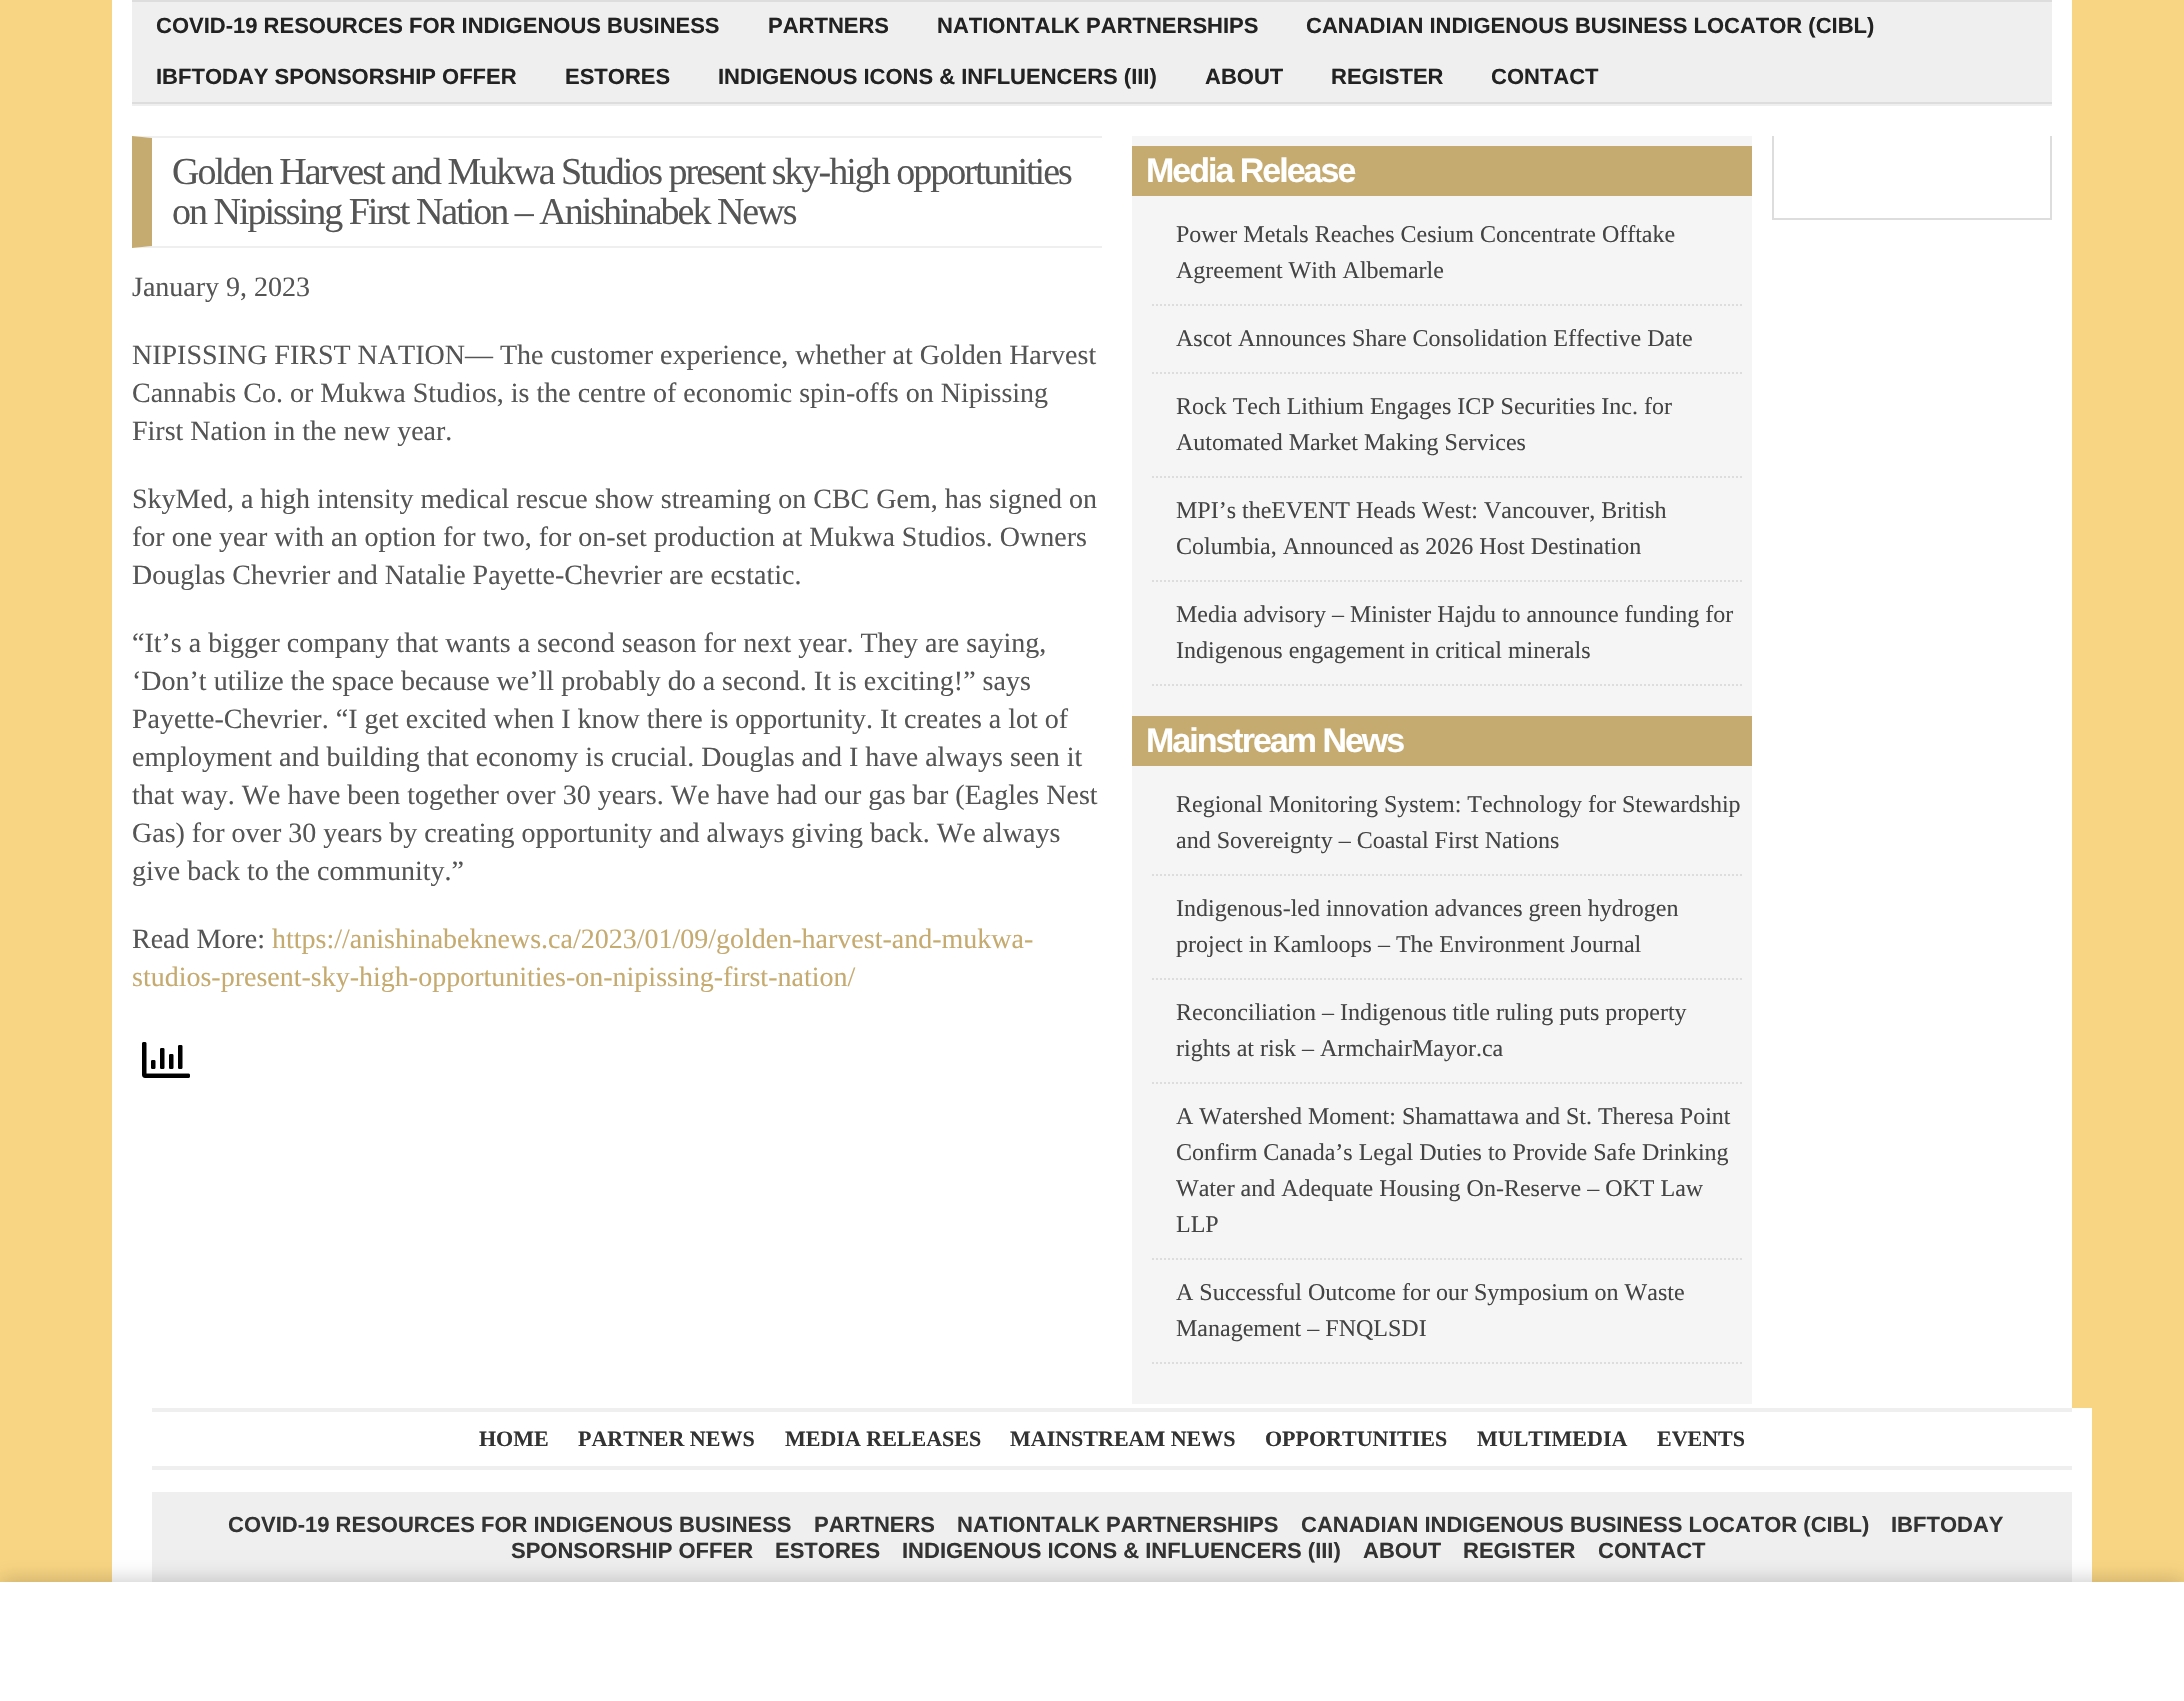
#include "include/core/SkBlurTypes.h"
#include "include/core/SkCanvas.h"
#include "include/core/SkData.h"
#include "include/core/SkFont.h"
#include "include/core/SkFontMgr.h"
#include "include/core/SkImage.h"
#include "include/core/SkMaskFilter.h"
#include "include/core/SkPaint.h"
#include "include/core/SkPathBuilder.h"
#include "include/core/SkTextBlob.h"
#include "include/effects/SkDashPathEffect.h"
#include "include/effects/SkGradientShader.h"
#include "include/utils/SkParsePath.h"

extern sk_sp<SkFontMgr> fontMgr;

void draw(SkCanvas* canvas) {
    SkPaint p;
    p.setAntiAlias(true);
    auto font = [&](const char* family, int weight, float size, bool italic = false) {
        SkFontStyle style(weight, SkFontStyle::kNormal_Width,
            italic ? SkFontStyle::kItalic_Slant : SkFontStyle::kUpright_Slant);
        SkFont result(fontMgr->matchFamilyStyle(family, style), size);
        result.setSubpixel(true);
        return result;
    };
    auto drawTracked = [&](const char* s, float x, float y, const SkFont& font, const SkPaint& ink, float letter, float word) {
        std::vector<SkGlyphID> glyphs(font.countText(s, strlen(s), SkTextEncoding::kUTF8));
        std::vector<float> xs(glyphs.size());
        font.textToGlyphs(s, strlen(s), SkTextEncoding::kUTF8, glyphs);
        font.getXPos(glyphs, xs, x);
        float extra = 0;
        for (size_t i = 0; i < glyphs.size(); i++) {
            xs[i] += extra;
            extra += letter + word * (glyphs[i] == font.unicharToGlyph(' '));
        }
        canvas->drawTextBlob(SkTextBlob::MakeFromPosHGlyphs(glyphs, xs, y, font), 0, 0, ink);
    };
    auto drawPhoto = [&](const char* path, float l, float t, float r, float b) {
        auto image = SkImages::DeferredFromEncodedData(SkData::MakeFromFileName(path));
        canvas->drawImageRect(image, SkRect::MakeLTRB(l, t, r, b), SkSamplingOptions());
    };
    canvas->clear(0xFFF8D583);
    {
        const struct { float l, t, r, b; SkColor color; } items[] = {
            {112, 0, 2072, 1582, 0xFFFFFFFF},
            {132, 0, 2052, 2, 0xFFDDDDDD},
            {132, 2, 2052, 106, 0xFFEFEFEF},
            {132, 102, 2052, 104, 0xFFDDDDDD},
        };
        for (auto [l, t, r, b, color] : items) {
            p.setColor(color);
            canvas->drawRect(SkRect::MakeLTRB(l, t, r, b), p);
        }
    }
    auto font1 = font("Liberation Sans", 700, 22);
    p.setColor(0xFF222222);
    {
        const struct { const char* s; float x, y; } items[] = {
            {"COVID-19 RESOURCES FOR INDIGENOUS BUSINESS", 156, 33},
            {"PARTNERS", 768, 33},
            {"NATIONTALK PARTNERSHIPS", 937, 33},
            {"CANADIAN INDIGENOUS BUSINESS LOCATOR (CIBL)", 1306, 33},
            {"IBFTODAY SPONSORSHIP OFFER", 156, 84},
            {"ESTORES", 565, 84},
            {"INDIGENOUS ICONS & INFLUENCERS (III)", 718, 84},
            {"ABOUT", 1205, 84},
            {"REGISTER", 1331, 84},
            {"CONTACT", 1491, 84},
        };
        for (auto [s, x, y] : items) {
            canvas->drawString(s, x, y, font1, p);
        }
    }
    p.setColor(0xFFEFEFEF);
    canvas->drawPath(SkPathBuilder().moveTo(132, 136).lineTo(1102, 136).lineTo(1102, 138).lineTo(152, 138).close().detach(), p);
    canvas->drawPath(SkPathBuilder().moveTo(1102, 248).lineTo(132, 248).lineTo(152, 246).lineTo(1102, 246).close().detach(), p);
    p.setColor(0xFFC6AB71);
    canvas->drawPath(SkPathBuilder().moveTo(132, 248).lineTo(132, 136).lineTo(152, 138).lineTo(152, 246).close().detach(), p);
    auto font2 = font("Liberation Serif", 400, 38);
    p.setColor(0xFF555555);
    drawTracked("Golden Harvest and Mukwa Studios present sky-high opportunities", 172, 184, font2, p, -2, 0);
    drawTracked("on Nipissing First Nation – Anishinabek News", 172, 224, font2, p, -2, 0);
    auto font3 = font("Liberation Serif", 400, 28);
    {
        const struct { const char* s; float x, y; } items[] = {
            {"January 9, 2023", 132, 296},
            {"NIPISSING FIRST NATION— The customer experience, whether at Golden Harvest", 132, 364},
            {"Cannabis Co. or Mukwa Studios, is the centre of economic spin-offs on Nipissing", 132, 402},
            {"First Nation in the new year.", 132, 440},
            {"SkyMed, a high intensity medical rescue show streaming on CBC Gem, has signed on", 132, 508},
            {"for one year with an option for two, for on-set production at Mukwa Studios. Owners", 132, 546},
            {"Douglas Chevrier and Natalie Payette-Chevrier are ecstatic.", 132, 584},
            {"“It’s a bigger company that wants a second season for next year. They are saying,", 132, 652},
            {"‘Don’t utilize the space because we’ll probably do a second. It is exciting!” says", 132, 690},
            {"Payette-Chevrier. “I get excited when I know there is opportunity. It creates a lot of", 132, 728},
            {"employment and building that economy is crucial. Douglas and I have always seen it", 132, 766},
            {"that way. We have been together over 30 years. We have had our gas bar (Eagles Nest", 132, 804},
            {"Gas) for over 30 years by creating opportunity and always giving back. We always", 132, 842},
            {"give back to the community.”", 132, 880},
            {"Read More:", 132, 948},
        };
        for (auto [s, x, y] : items) {
            canvas->drawString(s, x, y, font3, p);
        }
    }
    p.setColor(0xFFC6AB71);
    canvas->drawString("https://anishinabeknews.ca/2023/01/09/golden-harvest-and-mukwa-", 272, 948, font3, p);
    canvas->drawString("studios-present-sky-high-opportunities-on-nipissing-first-nation/", 132, 986, font3, p);
    drawPhoto("media/1.png", 142, 1042, 190, 1078);
    p.setColor(0xFFF5F5F5);
    canvas->drawRect(SkRect::MakeLTRB(1132, 136, 1752, 1404), p);
    p.setColor(0xFFC6AB71);
    canvas->drawRect(SkRect::MakeLTRB(1132, 146, 1752, 196), p);
    auto font4 = font("Liberation Sans", 700, 34);
    p.setColor(0xFFFFFFFF);
    drawTracked("Media Release", 1146, 182, font4, p, -2, 0);
    p.setStyle(SkPaint::kStroke_Style);
    p.setStrokeWidth(2);
    p.setColor(0xFFDDDDDD);
    p.setPathEffect(SkDashPathEffect::Make({{2, 2}}, 0));
    canvas->drawPath(SkPathBuilder().moveTo(1152, 305).lineTo(1742, 305).detach(), p);
    p.setPathEffect(nullptr);
    auto font5 = font("Liberation Serif", 400, 24);
    p.setStyle(SkPaint::kFill_Style);
    p.setColor(0xFF444444);
    canvas->drawString("Power Metals Reaches Cesium Concentrate Offtake", 1176, 242, font5, p);
    canvas->drawString("Agreement With Albemarle", 1176, 278, font5, p);
    p.setStyle(SkPaint::kStroke_Style);
    p.setColor(0xFFDDDDDD);
    p.setPathEffect(SkDashPathEffect::Make({{2, 2}}, 0));
    canvas->drawPath(SkPathBuilder().moveTo(1152, 373).lineTo(1742, 373).detach(), p);
    p.setPathEffect(nullptr);
    p.setStyle(SkPaint::kFill_Style);
    p.setColor(0xFF444444);
    canvas->drawString("Ascot Announces Share Consolidation Effective Date", 1176, 346, font5, p);
    p.setStyle(SkPaint::kStroke_Style);
    p.setColor(0xFFDDDDDD);
    p.setPathEffect(SkDashPathEffect::Make({{2, 2}}, 0));
    canvas->drawPath(SkPathBuilder().moveTo(1152, 477).lineTo(1742, 477).detach(), p);
    p.setPathEffect(nullptr);
    p.setStyle(SkPaint::kFill_Style);
    p.setColor(0xFF444444);
    canvas->drawString("Rock Tech Lithium Engages ICP Securities Inc. for", 1176, 414, font5, p);
    canvas->drawString("Automated Market Making Services", 1176, 450, font5, p);
    p.setStyle(SkPaint::kStroke_Style);
    p.setColor(0xFFDDDDDD);
    p.setPathEffect(SkDashPathEffect::Make({{2, 2}}, 0));
    canvas->drawPath(SkPathBuilder().moveTo(1152, 581).lineTo(1742, 581).detach(), p);
    p.setPathEffect(nullptr);
    p.setStyle(SkPaint::kFill_Style);
    p.setColor(0xFF444444);
    canvas->drawString("MPI’s theEVENT Heads West: Vancouver, British", 1176, 518, font5, p);
    canvas->drawString("Columbia, Announced as 2026 Host Destination", 1176, 554, font5, p);
    p.setStyle(SkPaint::kStroke_Style);
    p.setColor(0xFFDDDDDD);
    p.setPathEffect(SkDashPathEffect::Make({{2, 2}}, 0));
    canvas->drawPath(SkPathBuilder().moveTo(1152, 685).lineTo(1742, 685).detach(), p);
    p.setPathEffect(nullptr);
    p.setStyle(SkPaint::kFill_Style);
    p.setColor(0xFF444444);
    canvas->drawString("Media advisory – Minister Hajdu to announce funding for", 1176, 622, font5, p);
    canvas->drawString("Indigenous engagement in critical minerals", 1176, 658, font5, p);
    p.setColor(0xFFC6AB71);
    canvas->drawRect(SkRect::MakeLTRB(1132, 716, 1752, 766), p);
    p.setColor(0xFFFFFFFF);
    drawTracked("Mainstream News", 1146, 752, font4, p, -2, 0);
    p.setStyle(SkPaint::kStroke_Style);
    p.setColor(0xFFDDDDDD);
    p.setPathEffect(SkDashPathEffect::Make({{2, 2}}, 0));
    canvas->drawPath(SkPathBuilder().moveTo(1152, 875).lineTo(1742, 875).detach(), p);
    p.setPathEffect(nullptr);
    p.setStyle(SkPaint::kFill_Style);
    p.setColor(0xFF444444);
    canvas->drawString("Regional Monitoring System: Technology for Stewardship", 1176, 812, font5, p);
    canvas->drawString("and Sovereignty – Coastal First Nations", 1176, 848, font5, p);
    p.setStyle(SkPaint::kStroke_Style);
    p.setColor(0xFFDDDDDD);
    p.setPathEffect(SkDashPathEffect::Make({{2, 2}}, 0));
    canvas->drawPath(SkPathBuilder().moveTo(1152, 979).lineTo(1742, 979).detach(), p);
    p.setPathEffect(nullptr);
    p.setStyle(SkPaint::kFill_Style);
    p.setColor(0xFF444444);
    canvas->drawString("Indigenous-led innovation advances green hydrogen", 1176, 916, font5, p);
    canvas->drawString("project in Kamloops – The Environment Journal", 1176, 952, font5, p);
    p.setStyle(SkPaint::kStroke_Style);
    p.setColor(0xFFDDDDDD);
    p.setPathEffect(SkDashPathEffect::Make({{2, 2}}, 0));
    canvas->drawPath(SkPathBuilder().moveTo(1152, 1083).lineTo(1742, 1083).detach(), p);
    p.setPathEffect(nullptr);
    p.setStyle(SkPaint::kFill_Style);
    p.setColor(0xFF444444);
    canvas->drawString("Reconciliation – Indigenous title ruling puts property", 1176, 1020, font5, p);
    canvas->drawString("rights at risk – ArmchairMayor.ca", 1176, 1056, font5, p);
    p.setStyle(SkPaint::kStroke_Style);
    p.setColor(0xFFDDDDDD);
    p.setPathEffect(SkDashPathEffect::Make({{2, 2}}, 0));
    canvas->drawPath(SkPathBuilder().moveTo(1152, 1259).lineTo(1742, 1259).detach(), p);
    p.setPathEffect(nullptr);
    p.setStyle(SkPaint::kFill_Style);
    p.setColor(0xFF444444);
    {
        const struct { const char* s; float x, y; } items[] = {
            {"A Watershed Moment: Shamattawa and St. Theresa Point", 1176, 1124},
            {"Confirm Canada’s Legal Duties to Provide Safe Drinking", 1176, 1160},
            {"Water and Adequate Housing On-Reserve – OKT Law", 1176, 1196},
            {"LLP", 1176, 1232},
        };
        for (auto [s, x, y] : items) {
            canvas->drawString(s, x, y, font5, p);
        }
    }
    p.setStyle(SkPaint::kStroke_Style);
    p.setColor(0xFFDDDDDD);
    p.setPathEffect(SkDashPathEffect::Make({{2, 2}}, 0));
    canvas->drawPath(SkPathBuilder().moveTo(1152, 1363).lineTo(1742, 1363).detach(), p);
    p.setPathEffect(nullptr);
    p.setStyle(SkPaint::kFill_Style);
    p.setColor(0xFF444444);
    canvas->drawString("A Successful Outcome for our Symposium on Waste", 1176, 1300, font5, p);
    canvas->drawString("Management – FNQLSDI", 1176, 1336, font5, p);
    {
        const struct { float l, t, r, b; SkColor color; } items[] = {
            {2050, 136, 2052, 220, 0xFFDDDDDD},
            {1772, 218, 2052, 220, 0xFFDDDDDD},
            {1772, 136, 1774, 220, 0xFFDDDDDD},
            {2072, 1408, 2092, 1582, 0xFFFFFFFF},
            {152, 1408, 2072, 1412, 0xFFEFEFEF},
            {152, 1466, 2072, 1470, 0xFFEFEFEF},
        };
        for (auto [l, t, r, b, color] : items) {
            p.setColor(color);
            canvas->drawRect(SkRect::MakeLTRB(l, t, r, b), p);
        }
    }
    auto font6 = font("Liberation Serif", 700, 22);
    p.setColor(0xFF333333);
    {
        const struct { const char* s; float x, y; } items[] = {
            {"HOME", 479, 1446},
            {"PARTNER NEWS", 578, 1446},
            {"MEDIA RELEASES", 785, 1446},
            {"MAINSTREAM NEWS", 1010, 1446},
            {"OPPORTUNITIES", 1265, 1446},
            {"MULTIMEDIA", 1477, 1446},
            {"EVENTS", 1657, 1446},
        };
        for (auto [s, x, y] : items) {
            canvas->drawString(s, x, y, font6, p);
        }
    }
    p.setColor(0xFFEFEFEF);
    canvas->drawRect(SkRect::MakeLTRB(152, 1492, 2072, 1582), p);
    p.setColor(0xFF333333);
    {
        const struct { const char* s; float x, y; } items[] = {
            {"COVID-19 RESOURCES FOR INDIGENOUS BUSINESS", 228, 1532},
            {"PARTNERS", 814, 1532},
            {"NATIONTALK PARTNERSHIPS", 957, 1532},
            {"CANADIAN INDIGENOUS BUSINESS LOCATOR (CIBL)", 1301, 1532},
            {"IBFTODAY", 1891, 1532},
            {"SPONSORSHIP OFFER", 511, 1558},
            {"ESTORES", 775, 1558},
            {"INDIGENOUS ICONS & INFLUENCERS (III)", 902, 1558},
            {"ABOUT", 1363, 1558},
            {"REGISTER", 1463, 1558},
            {"CONTACT", 1598, 1558},
        };
        for (auto [s, x, y] : items) {
            canvas->drawString(s, x, y, font1, p);
        }
    }
    p.setColor(0x33000000);
    p.setMaskFilter(SkMaskFilter::MakeBlur(kNormal_SkBlurStyle, 10));
    canvas->drawRect(SkRect::MakeLTRB(0, 1580, 2184, 1700), p);
    p.setMaskFilter(nullptr);
    p.setColor(0xFFFFFFFF);
    canvas->drawRect(SkRect::MakeLTRB(0, 1582, 2184, 1701), p);
}
